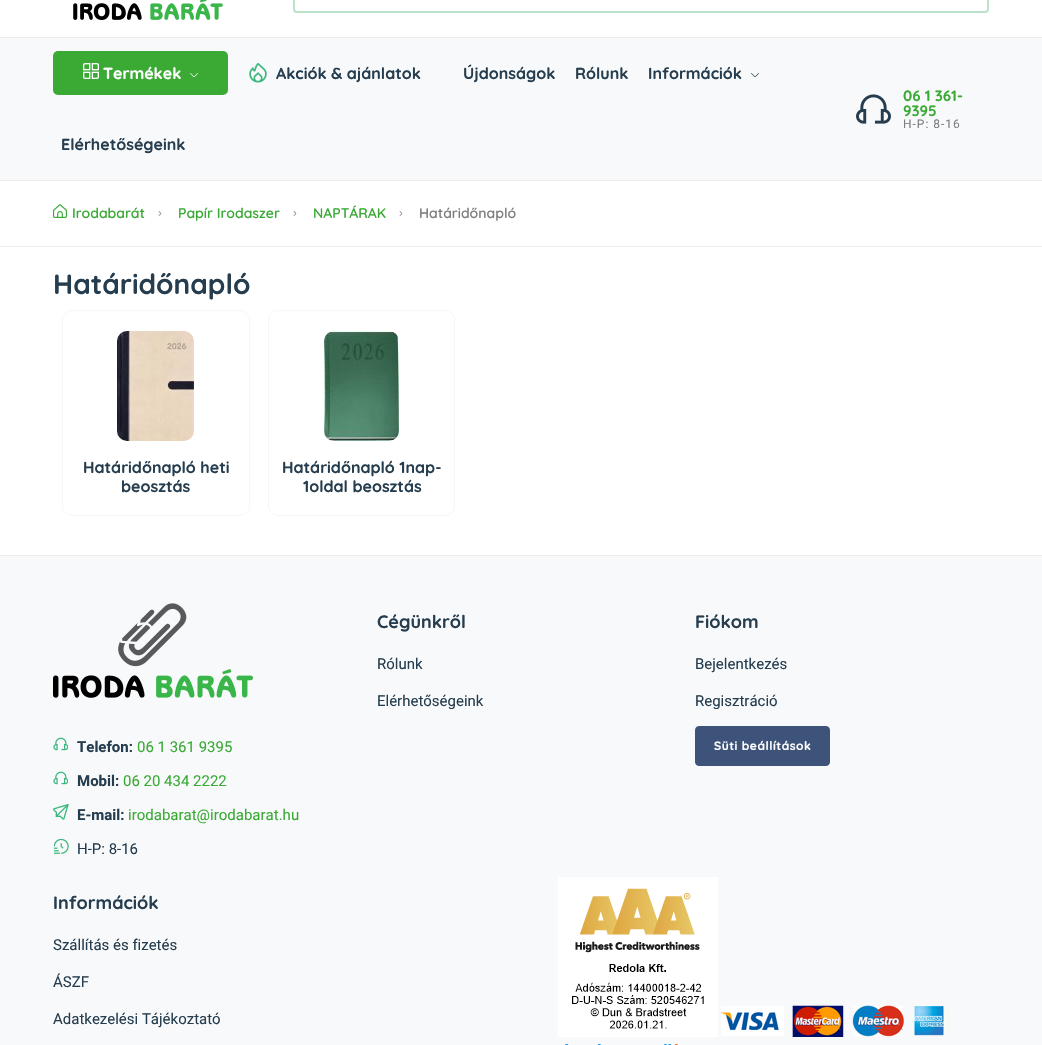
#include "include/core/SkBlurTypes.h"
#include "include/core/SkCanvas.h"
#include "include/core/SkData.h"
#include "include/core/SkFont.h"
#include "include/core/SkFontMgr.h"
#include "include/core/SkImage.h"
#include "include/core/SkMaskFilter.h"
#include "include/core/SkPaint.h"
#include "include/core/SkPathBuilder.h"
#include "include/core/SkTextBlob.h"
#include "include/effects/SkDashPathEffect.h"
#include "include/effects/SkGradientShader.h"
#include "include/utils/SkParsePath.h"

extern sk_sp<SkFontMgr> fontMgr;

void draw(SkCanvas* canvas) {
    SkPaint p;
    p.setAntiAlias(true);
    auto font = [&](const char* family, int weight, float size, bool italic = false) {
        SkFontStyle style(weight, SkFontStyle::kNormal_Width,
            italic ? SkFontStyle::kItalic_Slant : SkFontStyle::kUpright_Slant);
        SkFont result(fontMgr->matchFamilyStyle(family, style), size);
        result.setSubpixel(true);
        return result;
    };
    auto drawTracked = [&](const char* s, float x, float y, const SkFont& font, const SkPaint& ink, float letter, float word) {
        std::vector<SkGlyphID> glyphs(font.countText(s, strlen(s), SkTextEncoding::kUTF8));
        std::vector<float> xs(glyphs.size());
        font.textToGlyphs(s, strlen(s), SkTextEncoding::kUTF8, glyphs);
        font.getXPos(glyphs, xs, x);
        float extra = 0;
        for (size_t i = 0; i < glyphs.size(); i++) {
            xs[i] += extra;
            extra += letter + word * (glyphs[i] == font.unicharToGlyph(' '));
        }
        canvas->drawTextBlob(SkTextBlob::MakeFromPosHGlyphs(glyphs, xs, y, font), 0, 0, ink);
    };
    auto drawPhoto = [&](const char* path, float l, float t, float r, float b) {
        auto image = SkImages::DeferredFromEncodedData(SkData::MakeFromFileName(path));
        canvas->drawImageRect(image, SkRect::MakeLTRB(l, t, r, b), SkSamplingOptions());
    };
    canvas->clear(0xFFFFFFFF);
    drawPhoto("media/1.png", 73, 0, 223, 20);
    p.setStyle(SkPaint::kStroke_Style);
    p.setStrokeWidth(2);
    p.setColor(0xFFBCE3C9);
    canvas->drawRoundRect(SkRect::MakeLTRB(294, -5, 988, 12), 3, 3, p);
    p.setStyle(SkPaint::kFill_Style);
    {
        const struct { float l, t, r, b; SkColor color; } items[] = {
            {0, 38, 1042, 180, 0xFFF8F9FA},
            {0, 37, 1042, 38, 0xFFECECEC},
            {0, 180, 1042, 181, 0xFFECECEC},
        };
        for (auto [l, t, r, b, color] : items) {
            p.setColor(color);
            canvas->drawRect(SkRect::MakeLTRB(l, t, r, b), p);
        }
    }
    p.setColor(0xFF3AAA35);
    canvas->drawRoundRect(SkRect::MakeLTRB(53, 51, 228, 95), 5, 5, p);
    drawPhoto("media/2.png", 83, 63, 99, 79);
    auto font1 = font("Quicksand", 700, 16);
    p.setColor(0xFFFFFFFF);
    canvas->drawString("Termékek", 103, 79, font1, p);
    drawPhoto("media/3.png", 190, 73, 198, 77);
    drawPhoto("media/4.png", 249, 63, 267, 83);
    p.setColor(0xFF253D4E);
    {
        const struct { const char* s; float x, y; } items[] = {
            {"Akciók & ajánlatok", 276, 79},
            {"Újdonságok", 463, 79},
            {"Rólunk", 575, 79},
            {"Információk", 648, 79},
        };
        for (auto [s, x, y] : items) {
            canvas->drawString(s, x, y, font1, p);
        }
    }
    drawPhoto("media/5.png", 751, 73, 759, 77);
    canvas->drawString("Elérhetőségeink", 61, 150, font1, p);
    drawPhoto("media/6.png", 856, 94, 891, 124);
    auto font2 = font("Quicksand", 700, 15);
    p.setColor(0xFF3AAA35);
    canvas->drawString("06 1 361-", 903, 101, font2, p);
    canvas->drawString("9395", 903, 116, font2, p);
    auto font3 = font("Roboto", 400, 12);
    p.setColor(0xFF7E7E7E);
    drawTracked("H-P: 8-16", 903, 128, font3, p, 1, 0);
    p.setColor(0xFFECECEC);
    canvas->drawRect(SkRect::MakeLTRB(0, 246, 1042, 247), p);
    drawPhoto("media/7.png", 53, 204, 67, 218);
    auto font4 = font("Quicksand", 600, 14);
    p.setColor(0xFF3AAA35);
    canvas->drawString("Irodabarát", 72, 218, font4, p);
    drawPhoto("media/8.png", 158, 211, 162, 216);
    canvas->drawString("Papír Irodaszer", 178, 218, font4, p);
    drawPhoto("media/8.png", 293, 211, 297, 216);
    canvas->drawString("NAPTÁRAK", 313, 218, font4, p);
    drawPhoto("media/8.png", 399, 211, 403, 216);
    p.setColor(0xFF7E7E7E);
    canvas->drawString("Határidőnapló", 419, 218, font4, p);
    auto font5 = font("Quicksand", 700, 28);
    p.setColor(0xFF253D4E);
    canvas->drawString("Határidőnapló", 53, 294, font5, p);
    p.setStyle(SkPaint::kStroke_Style);
    p.setStrokeWidth(1);
    p.setColor(0xFFF4F6FA);
    canvas->drawRoundRect(SkRect::MakeLTRB(62.5f, 310.5f, 249.5f, 515.5f), 9.5f, 9.5f, p);
    drawPhoto("media/9.png", 117, 331, 194, 441);
    p.setStyle(SkPaint::kFill_Style);
    p.setColor(0xFF253D4E);
    canvas->drawString("Határidőnapló heti", 83, 473, font1, p);
    canvas->drawString("beosztás", 121, 492, font1, p);
    p.setStyle(SkPaint::kStroke_Style);
    p.setColor(0xFFF4F6FA);
    canvas->drawRoundRect(SkRect::MakeLTRB(268.5f, 310.5f, 454.5f, 515.5f), 9.5f, 9.5f, p);
    drawPhoto("media/10.png", 324, 331, 399, 441);
    p.setStyle(SkPaint::kFill_Style);
    p.setColor(0xFF253D4E);
    canvas->drawString("Határidőnapló 1nap-", 282, 473, font1, p);
    canvas->drawString("1oldal beosztás", 303, 492, font1, p);
    p.setColor(0xFFF8F9FA);
    canvas->drawRect(SkRect::MakeLTRB(0, 556, 1042, 1045), p);
    p.setColor(0xFFECECEC);
    canvas->drawRect(SkRect::MakeLTRB(0, 555, 1042, 556), p);
    auto font6 = font("Quicksand", 700, 18);
    p.setColor(0xFF253D4E);
    canvas->drawString("Cégünkről", 377, 628, font6, p);
    auto font7 = font("Roboto", 400, 15);
    canvas->drawString("Rólunk", 377, 669, font7, p);
    canvas->drawString("Elérhetőségeink", 377, 706, font7, p);
    canvas->drawString("Fiókom", 695, 628, font6, p);
    canvas->drawString("Bejelentkezés", 695, 669, font7, p);
    canvas->drawString("Regisztráció", 695, 706, font7, p);
    p.setColor(0xFF3E5379);
    canvas->drawRoundRect(SkRect::MakeLTRB(695.5f, 726.5f, 829.5f, 765.5f), 3.5f, 3.5f, p);
    p.setStyle(SkPaint::kStroke_Style);
    canvas->drawRoundRect(SkRect::MakeLTRB(695.5f, 726.5f, 829.5f, 765.5f), 3.5f, 3.5f, p);
    auto font8 = font("Quicksand", 700, 12);
    p.setStyle(SkPaint::kFill_Style);
    p.setColor(0xFFFFFFFF);
    drawTracked("Süti beállítások", 714, 750, font8, p, 0.5f, 0);
    drawPhoto("media/11.png", 53, 603, 253, 698);
    drawPhoto("media/12.png", 53, 737, 68, 751);
    auto font9 = font("Roboto", 700, 15);
    p.setColor(0xFF253D4E);
    canvas->drawString("Telefon:", 77, 752, font9, p);
    p.setColor(0xFF3AAA35);
    canvas->drawString("06 1 361 9395", 137, 752, font7, p);
    drawPhoto("media/12.png", 53, 771, 68, 785);
    p.setColor(0xFF253D4E);
    canvas->drawString("Mobil:", 77, 786, font9, p);
    p.setColor(0xFF3AAA35);
    canvas->drawString("06 20 434 2222", 123, 786, font7, p);
    drawPhoto("media/13.png", 53, 804, 69, 820);
    p.setColor(0xFF253D4E);
    canvas->drawString("E-mail:", 77, 820, font9, p);
    p.setColor(0xFF3AAA35);
    canvas->drawString("irodabarat@irodabarat.hu", 128, 820, font7, p);
    drawPhoto("media/14.png", 54, 839, 69, 854);
    p.setColor(0xFF253D4E);
    canvas->drawString("H-P: 8-16", 77, 854, font7, p);
    canvas->drawString("Információk", 53, 909, font6, p);
    {
        const struct { const char* s; float x, y; } items[] = {
            {"Szállítás és fizetés", 53, 950},
            {"ÁSZF", 53, 987},
            {"Adatkezelési Tájékoztató", 53, 1024},
        };
        for (auto [s, x, y] : items) {
            canvas->drawString(s, x, y, font7, p);
        }
    }
    drawPhoto("media/15.png", 558, 877, 718, 1037);
    drawPhoto("media/16.png", 721, 1005, 945, 1037);
    drawPhoto("media/17.png", 565, 1044, 678, 1045);
}
